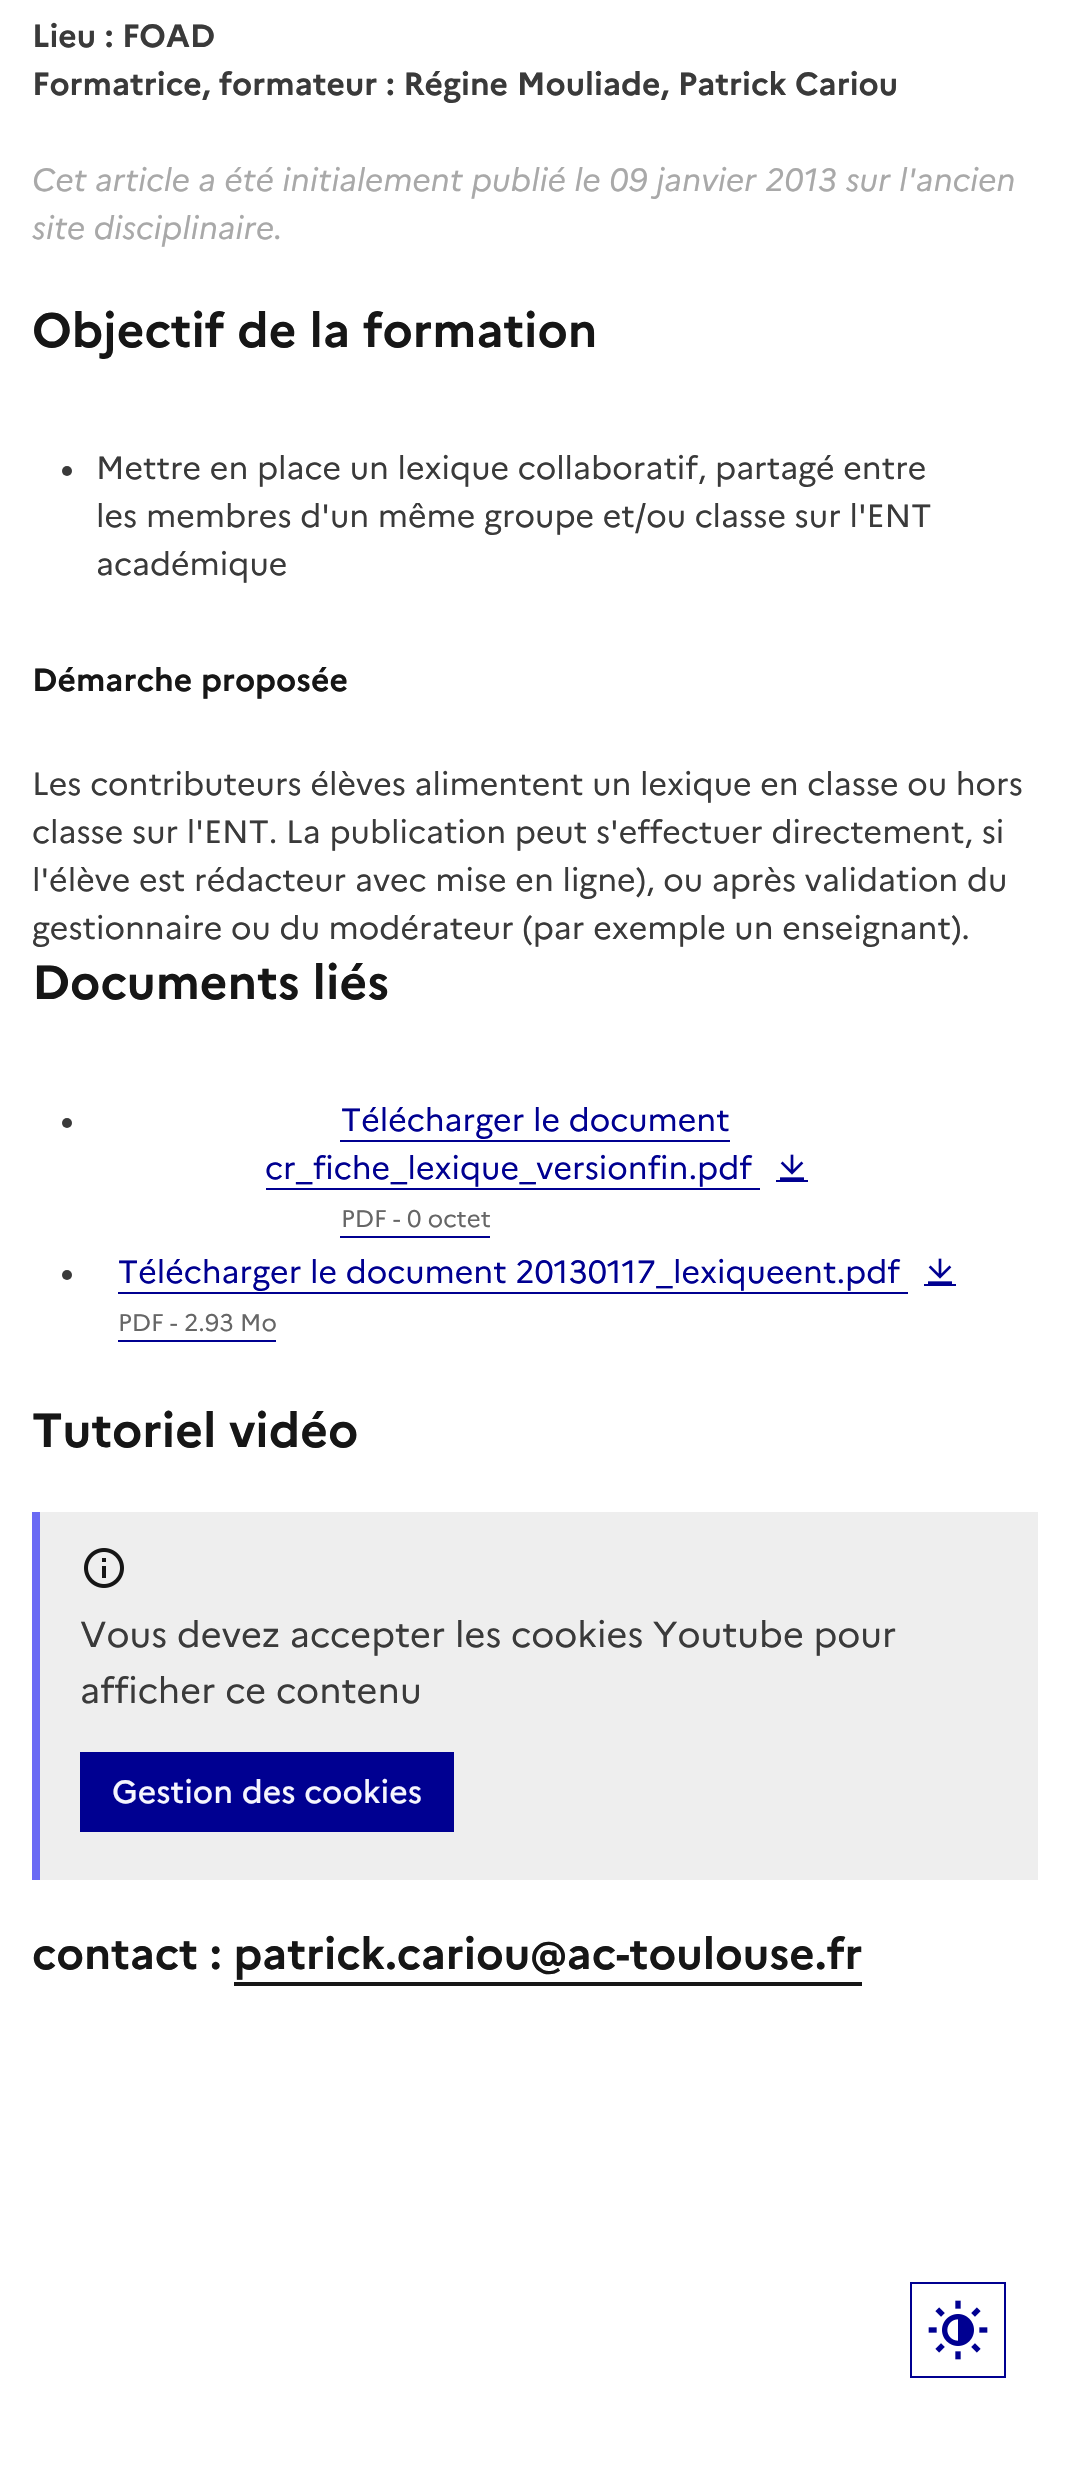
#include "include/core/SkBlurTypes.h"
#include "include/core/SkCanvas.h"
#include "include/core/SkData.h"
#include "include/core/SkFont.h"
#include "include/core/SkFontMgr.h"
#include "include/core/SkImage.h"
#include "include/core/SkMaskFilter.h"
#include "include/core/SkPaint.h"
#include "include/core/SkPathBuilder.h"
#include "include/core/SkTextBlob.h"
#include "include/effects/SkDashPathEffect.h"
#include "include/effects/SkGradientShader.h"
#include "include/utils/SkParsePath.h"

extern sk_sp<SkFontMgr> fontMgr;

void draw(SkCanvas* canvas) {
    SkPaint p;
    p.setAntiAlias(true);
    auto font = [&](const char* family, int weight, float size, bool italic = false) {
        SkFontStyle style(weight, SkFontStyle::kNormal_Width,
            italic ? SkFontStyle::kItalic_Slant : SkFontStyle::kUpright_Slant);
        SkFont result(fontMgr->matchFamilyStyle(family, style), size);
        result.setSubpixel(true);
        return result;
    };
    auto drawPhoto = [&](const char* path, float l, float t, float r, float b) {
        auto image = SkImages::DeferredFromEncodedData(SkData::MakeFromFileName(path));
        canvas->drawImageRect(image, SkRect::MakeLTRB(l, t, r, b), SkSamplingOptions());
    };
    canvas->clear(0xFFFFFFFF);
    auto font1 = font("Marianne", 700, 32);
    p.setColor(0xFF3A3A3A);
    canvas->drawString("Lieu : FOAD", 32, 47, font1, p);
    canvas->drawString("Formatrice, formateur : Régine Mouliade, Patrick Cariou", 32, 95, font1, p);
    auto font2 = font("Marianne", 400, 32, true);
    p.setColor(0xFFA9A9A9);
    canvas->drawString("Cet article a été initialement publié le 09 janvier 2013 sur l'ancien", 32, 191, font2, p);
    canvas->drawString("site disciplinaire.", 32, 239, font2, p);
    auto font3 = font("Marianne", 700, 48);
    p.setColor(0xFF161616);
    canvas->drawString("Objectif de la formation", 32, 347, font3, p);
    p.setColor(0xFF3A3A3A);
    canvas->drawCircle(67, 471, 5, p);
    auto font4 = font("Marianne", 400, 32);
    {
        const struct { const char* s; float x, y; } items[] = {
            {"Mettre en place un lexique collaboratif, partagé entre", 96, 479},
            {"les membres d'un même groupe et/ou classe sur l'ENT", 96, 527},
            {"académique", 96, 575},
        };
        for (auto [s, x, y] : items) {
            canvas->drawString(s, x, y, font4, p);
        }
    }
    p.setColor(0xFF161616);
    canvas->drawString("Démarche proposée", 32, 691, font1, p);
    p.setColor(0xFF3A3A3A);
    {
        const struct { const char* s; float x, y; } items[] = {
            {"Les contributeurs élèves alimentent un lexique en classe ou hors", 32, 795},
            {"classe sur l'ENT. La publication peut s'effectuer directement, si", 32, 843},
            {"l'élève est rédacteur avec mise en ligne), ou après validation du", 32, 891},
            {"gestionnaire ou du modérateur (par exemple un enseignant).", 32, 939},
        };
        for (auto [s, x, y] : items) {
            canvas->drawString(s, x, y, font4, p);
        }
    }
    p.setColor(0xFF161616);
    canvas->drawString("Documents liés", 32, 999, font3, p);
    p.setColor(0xFF3A3A3A);
    canvas->drawCircle(67, 1123, 5, p);
    {
        const struct { float l, t, r, b; SkColor color; } items[] = {
            {340, 1140, 730, 1142, 0xFF000091},
            {266, 1188, 760, 1190, 0xFF000091},
            {340, 1236, 490, 1238, 0xFF000091},
            {776, 1180, 808, 1182, 0xFF000091},
        };
        for (auto [l, t, r, b, color] : items) {
            p.setColor(color);
            canvas->drawRect(SkRect::MakeLTRB(l, t, r, b), p);
        }
    }
    canvas->drawString("Télécharger le document", 341, 1131, font4, p);
    canvas->drawString("cr_fiche_lexique_versionfin.pdf", 265, 1179, font4, p);
    drawPhoto("media/1.png", 780, 1154, 804, 1180);
    auto font5 = font("Marianne", 400, 24);
    p.setColor(0xFF666666);
    canvas->drawString("PDF - 0 octet", 341, 1227, font5, p);
    p.setColor(0xFF3A3A3A);
    canvas->drawCircle(67, 1275, 5, p);
    {
        const struct { float l, t, r, b; SkColor color; } items[] = {
            {118, 1292, 908, 1294, 0xFF000091},
            {118, 1340, 276, 1342, 0xFF000091},
            {924, 1284, 956, 1286, 0xFF000091},
        };
        for (auto [l, t, r, b, color] : items) {
            p.setColor(color);
            canvas->drawRect(SkRect::MakeLTRB(l, t, r, b), p);
        }
    }
    canvas->drawString("Télécharger le document 20130117_lexiqueent.pdf", 118, 1283, font4, p);
    drawPhoto("media/1.png", 928, 1258, 952, 1284);
    p.setColor(0xFF666666);
    canvas->drawString("PDF - 2.93 Mo", 118, 1331, font5, p);
    p.setColor(0xFF161616);
    canvas->drawString("Tutoriel vidéo", 32, 1447, font3, p);
    p.setColor(0xFFEEEEEE);
    canvas->drawRect(SkRect::MakeLTRB(40, 1512, 1038, 1880), p);
    p.setColor(0xFF6A6AF4);
    canvas->drawRect(SkRect::MakeLTRB(32, 1512, 40, 1880), p);
    drawPhoto("media/2.png", 84, 1548, 124, 1588);
    auto font6 = font("Marianne", 400, 36);
    p.setColor(0xFF3A3A3A);
    canvas->drawString("Vous devez accepter les cookies Youtube pour", 80, 1647, font6, p);
    canvas->drawString("afficher ce contenu", 80, 1703, font6, p);
    p.setColor(0xFF000091);
    canvas->drawRect(SkRect::MakeLTRB(80, 1752, 454, 1832), p);
    auto font7 = font("Marianne", 500, 32);
    p.setColor(0xFFF5F5FE);
    canvas->drawString("Gestion des cookies", 112, 1803, font7, p);
    auto font8 = font("Marianne", 700, 44);
    p.setColor(0xFF161616);
    canvas->drawString("contact : patrick.cariou@ac-toulouse.fr", 32, 1969, font8, p);
    canvas->drawRect(SkRect::MakeLTRB(234, 1982, 862, 1986), p);
    p.setStyle(SkPaint::kStroke_Style);
    p.setStrokeWidth(2);
    p.setColor(0xFF000091);
    canvas->drawRect(SkRect::MakeLTRB(911, 2283, 1005, 2377), p);
    drawPhoto("media/3.png", 928, 2300, 988, 2360);
}
